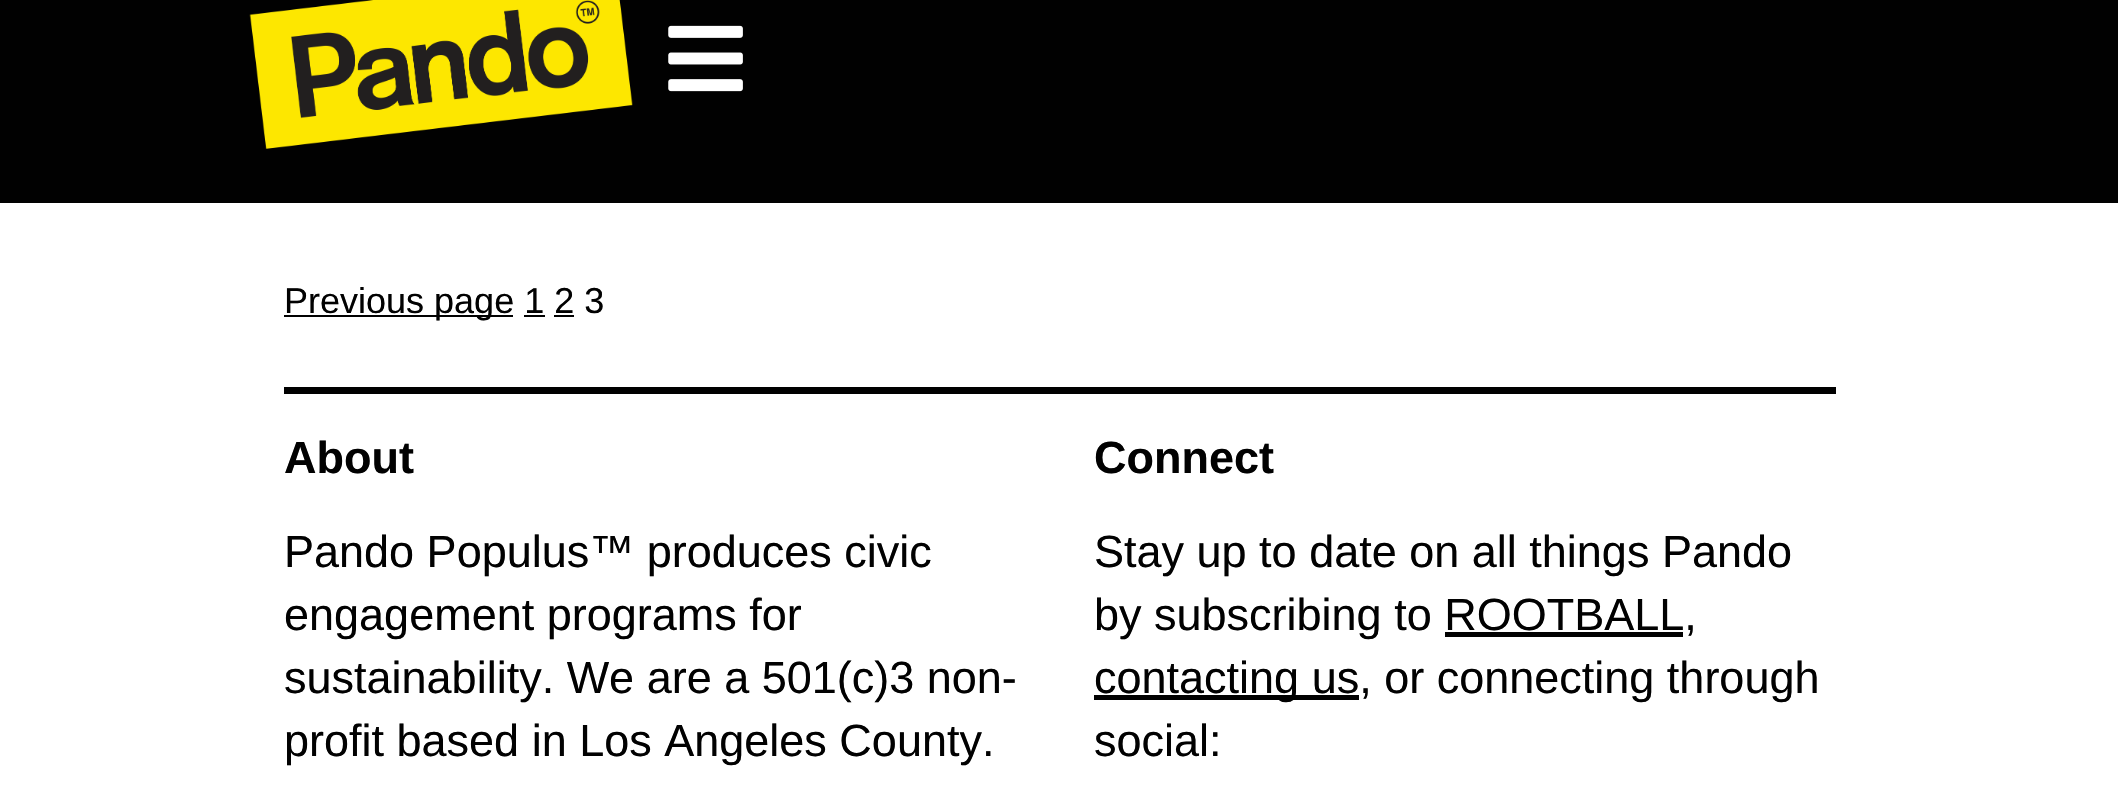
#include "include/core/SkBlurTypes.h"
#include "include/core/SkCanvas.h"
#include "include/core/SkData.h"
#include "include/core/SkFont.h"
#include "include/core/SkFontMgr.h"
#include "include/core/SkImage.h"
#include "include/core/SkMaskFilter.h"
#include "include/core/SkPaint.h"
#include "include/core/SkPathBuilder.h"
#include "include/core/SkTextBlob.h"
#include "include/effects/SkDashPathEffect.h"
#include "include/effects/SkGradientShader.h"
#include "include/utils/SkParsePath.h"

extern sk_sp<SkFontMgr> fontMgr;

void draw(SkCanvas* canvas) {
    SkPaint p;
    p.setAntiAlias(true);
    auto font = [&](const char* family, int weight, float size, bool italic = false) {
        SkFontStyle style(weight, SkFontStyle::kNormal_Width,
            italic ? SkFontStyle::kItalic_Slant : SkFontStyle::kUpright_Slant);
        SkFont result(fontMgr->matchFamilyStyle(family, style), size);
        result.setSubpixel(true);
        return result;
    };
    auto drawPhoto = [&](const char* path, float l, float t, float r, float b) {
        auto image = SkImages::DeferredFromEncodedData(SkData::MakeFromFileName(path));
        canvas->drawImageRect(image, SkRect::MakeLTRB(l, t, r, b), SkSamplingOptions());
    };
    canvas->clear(0xFFFFFFFF);
    p.setColor(0xFF010101);
    canvas->drawRect(SkRect::MakeLTRB(0, 0, 2118, 203), p);
    drawPhoto("media/1.png", 249, 0, 633, 149);
    drawPhoto("media/2.png", 668, 25, 743, 92);
    canvas->drawRect(SkRect::MakeLTRB(284, 315, 513, 317), p);
    auto font1 = font("Liberation Sans", 400, 36);
    canvas->drawString("Previous page 1 2 3", 284, 313, font1, p);
    {
        const struct { float l, t, r, b; SkColor color; } items[] = {
            {524, 315, 545, 317, 0xFF010101},
            {554, 315, 574, 317, 0xFF010101},
            {284, 387, 1836, 394, 0xFF000000},
        };
        for (auto [l, t, r, b, color] : items) {
            p.setColor(color);
            canvas->drawRect(SkRect::MakeLTRB(l, t, r, b), p);
        }
    }
    auto font2 = font("Liberation Sans", 700, 45);
    p.setColor(0xFF010101);
    canvas->drawString("About", 284, 473, font2, p);
    auto font3 = font("Liberation Sans", 400, 45);
    {
        const struct { const char* s; float x, y; } items[] = {
            {"Pando Populus™ produces civic", 284, 567},
            {"engagement programs for", 284, 630},
            {"sustainability. We are a 501(c)3 non-", 284, 693},
            {"profit based in Los Angeles County.", 284, 756},
        };
        for (auto [s, x, y] : items) {
            canvas->drawString(s, x, y, font3, p);
        }
    }
    canvas->drawString("Connect", 1094, 473, font2, p);
    canvas->drawString("Stay up to date on all things Pando", 1094, 567, font3, p);
    canvas->drawString("by subscribing to ROOTBALL,", 1094, 630, font3, p);
    canvas->drawRect(SkRect::MakeLTRB(1445, 632, 1683, 637), p);
    canvas->drawRect(SkRect::MakeLTRB(1094, 695, 1359, 700), p);
    canvas->drawString("contacting us, or connecting through", 1094, 693, font3, p);
    canvas->drawString("social:", 1094, 756, font3, p);
}
